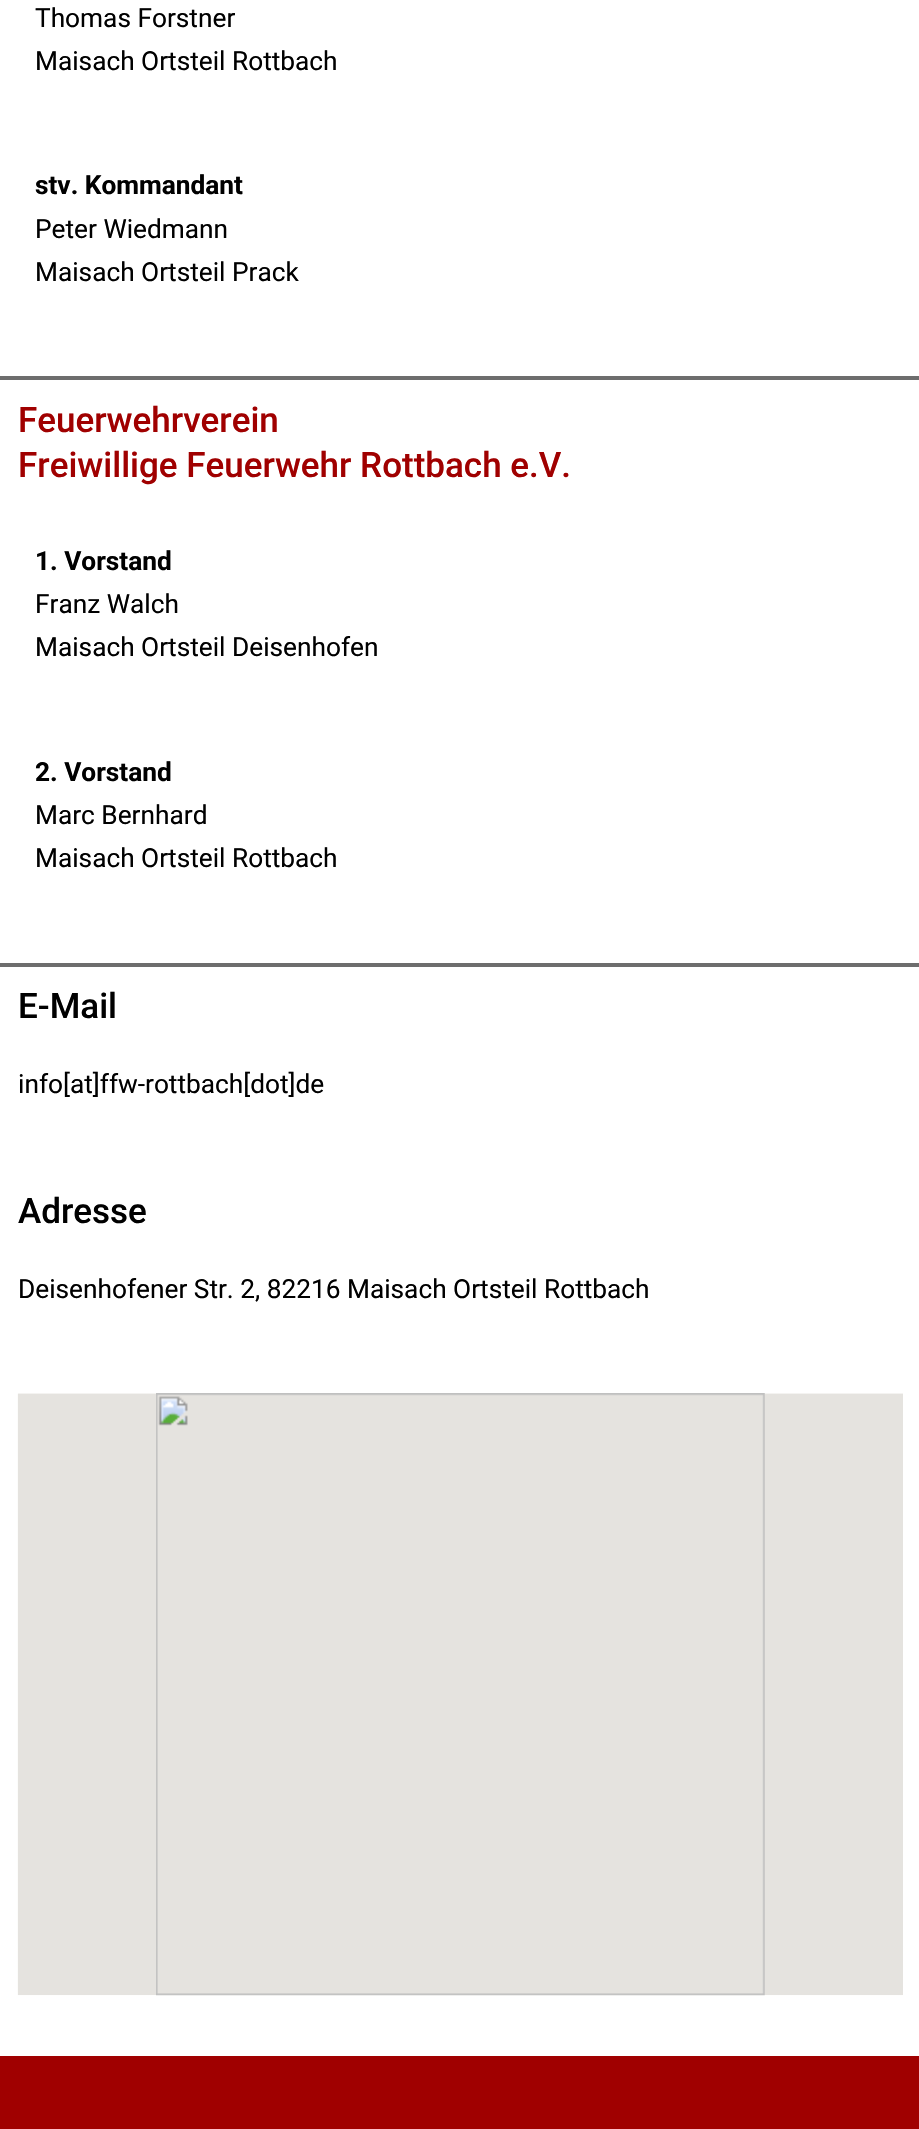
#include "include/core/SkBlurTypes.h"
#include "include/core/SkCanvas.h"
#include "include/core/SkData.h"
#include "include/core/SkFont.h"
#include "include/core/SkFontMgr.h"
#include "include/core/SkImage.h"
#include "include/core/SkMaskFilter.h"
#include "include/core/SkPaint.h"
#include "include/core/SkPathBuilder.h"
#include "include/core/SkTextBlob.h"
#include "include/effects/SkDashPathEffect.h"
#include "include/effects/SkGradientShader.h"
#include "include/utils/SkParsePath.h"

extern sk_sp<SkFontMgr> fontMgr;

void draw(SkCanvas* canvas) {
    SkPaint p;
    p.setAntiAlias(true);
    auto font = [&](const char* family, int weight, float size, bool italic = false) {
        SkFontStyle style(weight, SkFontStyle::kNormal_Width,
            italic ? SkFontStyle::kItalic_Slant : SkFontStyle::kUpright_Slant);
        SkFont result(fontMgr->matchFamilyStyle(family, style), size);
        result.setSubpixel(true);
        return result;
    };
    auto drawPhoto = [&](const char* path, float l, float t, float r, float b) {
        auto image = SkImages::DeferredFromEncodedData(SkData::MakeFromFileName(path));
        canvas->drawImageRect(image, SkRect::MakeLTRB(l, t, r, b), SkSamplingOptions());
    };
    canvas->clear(0xFFFFFFFF);
    auto font1 = font("Roboto", 400, 26.25f);
    p.setColor(0xFF000000);
    canvas->drawString("Thomas Forstner", 35, 27, font1, p);
    canvas->drawString("Maisach Ortsteil Rottbach", 35, 70, font1, p);
    auto font2 = font("Roboto", 700, 26.25f);
    canvas->drawString("stv. Kommandant", 35, 194, font2, p);
    canvas->drawString("Peter Wiedmann", 35, 238, font1, p);
    canvas->drawString("Maisach Ortsteil Prack", 35, 281, font1, p);
    p.setColor(0xFF6D6D6D);
    canvas->drawRect(SkRect::MakeLTRB(0, 376, 919, 380), p);
    auto font3 = font("Roboto", 500, 35);
    p.setColor(0xFFA00000);
    canvas->drawString("Feuerwehrverein", 18, 432, font3, p);
    canvas->drawString("Freiwillige Feuerwehr Rottbach e.V.", 18, 477, font3, p);
    p.setColor(0xFF000000);
    canvas->drawString("1. Vorstand", 35, 570, font2, p);
    canvas->drawString("Franz Walch", 35, 613, font1, p);
    canvas->drawString("Maisach Ortsteil Deisenhofen", 35, 656, font1, p);
    canvas->drawString("2. Vorstand", 35, 781, font2, p);
    canvas->drawString("Marc Bernhard", 35, 824, font1, p);
    canvas->drawString("Maisach Ortsteil Rottbach", 35, 867, font1, p);
    p.setColor(0xFF6D6D6D);
    canvas->drawRect(SkRect::MakeLTRB(0, 963, 919, 967), p);
    p.setColor(0xFF000000);
    canvas->drawString("E-Mail", 18, 1018, font3, p);
    canvas->drawString("info[at]ffw-rottbach[dot]de", 18, 1093, font1, p);
    canvas->drawString("Adresse", 18, 1223, font3, p);
    canvas->drawString("Deisenhofener Str. 2, 82216 Maisach Ortsteil Rottbach", 18, 1298, font1, p);
    drawPhoto("media/1.png", 17, 1393, 903, 1996);
    p.setColor(0xFFA00000);
    canvas->drawRect(SkRect::MakeLTRB(0, 2056, 919, 2129), p);
}
